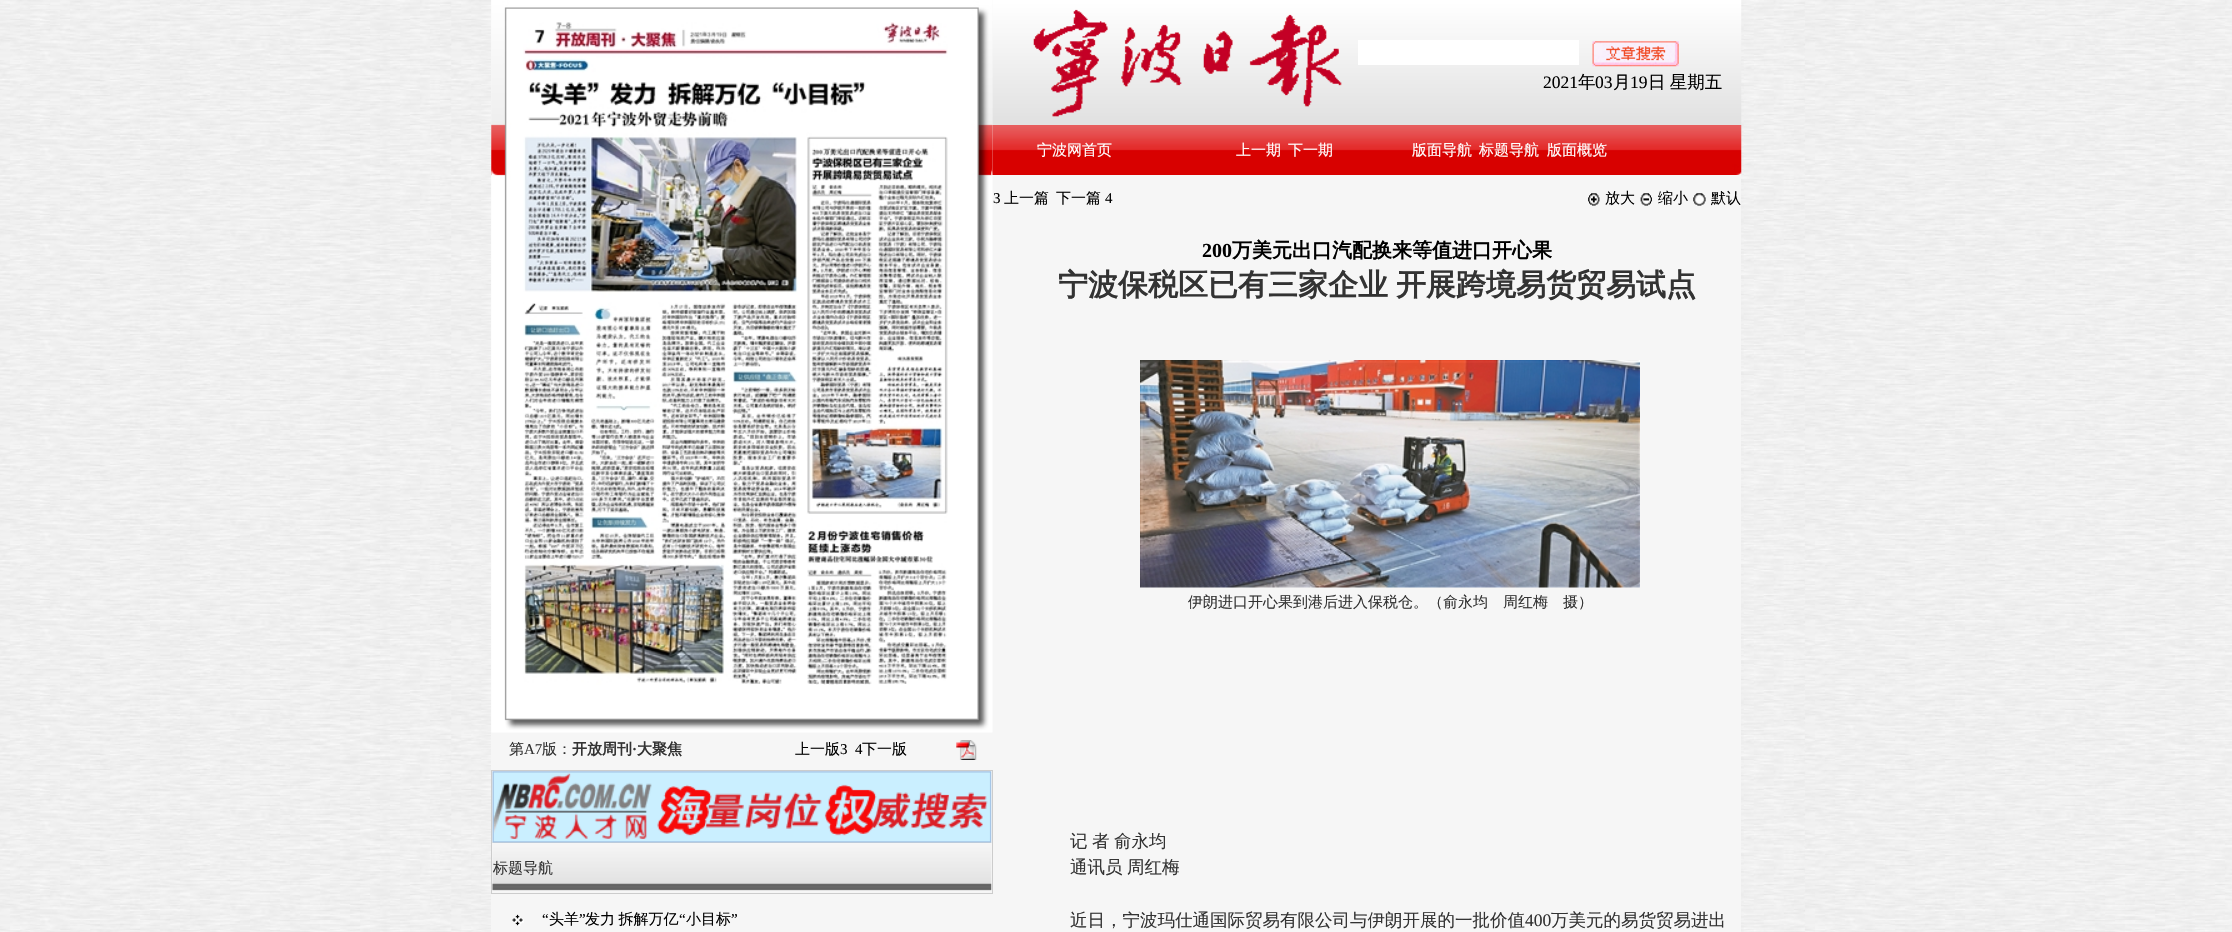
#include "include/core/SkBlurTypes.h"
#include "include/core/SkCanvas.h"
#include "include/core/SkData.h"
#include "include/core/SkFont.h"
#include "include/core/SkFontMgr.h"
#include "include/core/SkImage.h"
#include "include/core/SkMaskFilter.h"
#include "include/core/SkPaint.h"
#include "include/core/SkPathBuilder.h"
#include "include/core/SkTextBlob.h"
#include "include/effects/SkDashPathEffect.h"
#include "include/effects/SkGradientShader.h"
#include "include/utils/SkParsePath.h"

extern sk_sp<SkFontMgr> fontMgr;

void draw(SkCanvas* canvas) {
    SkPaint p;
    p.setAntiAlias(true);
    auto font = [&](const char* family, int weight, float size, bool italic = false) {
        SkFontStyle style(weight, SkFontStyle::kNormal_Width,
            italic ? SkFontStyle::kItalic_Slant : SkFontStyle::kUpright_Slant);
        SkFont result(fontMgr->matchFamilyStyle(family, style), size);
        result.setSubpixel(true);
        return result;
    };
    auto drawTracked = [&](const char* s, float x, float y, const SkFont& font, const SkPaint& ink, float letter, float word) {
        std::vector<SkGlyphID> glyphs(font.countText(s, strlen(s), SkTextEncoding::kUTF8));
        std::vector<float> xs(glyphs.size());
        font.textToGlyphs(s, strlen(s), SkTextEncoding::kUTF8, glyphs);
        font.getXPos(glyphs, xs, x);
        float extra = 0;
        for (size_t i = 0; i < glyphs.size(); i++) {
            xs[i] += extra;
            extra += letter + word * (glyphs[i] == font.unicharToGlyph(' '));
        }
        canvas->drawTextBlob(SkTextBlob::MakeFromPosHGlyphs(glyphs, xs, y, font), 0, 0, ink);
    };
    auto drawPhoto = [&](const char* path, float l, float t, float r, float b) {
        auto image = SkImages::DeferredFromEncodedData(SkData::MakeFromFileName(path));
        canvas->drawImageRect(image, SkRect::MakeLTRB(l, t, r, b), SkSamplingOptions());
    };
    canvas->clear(0xFFFFFFFF);
    drawPhoto("media/1.png", 0, 0, 2232, 932);
    p.setColor(0xFFF6F6F6);
    canvas->drawRect(SkRect::MakeLTRB(491, 0, 1741, 932), p);
    drawPhoto("media/2.png", 491, 0, 993, 733);
    drawPhoto("media/3.png", 523, 22, 948, 685);
    auto font1 = font("WenQuanYi Zen Hei", 500, 15);
    p.setColor(0xFF333333);
    canvas->drawString("第", 509, 754, font1, p);
    auto font2 = font("Liberation Serif", 400, 15);
    canvas->drawString("A7", 524, 754, font2, p);
    canvas->drawString("版：", 542, 754, font1, p);
    auto font3 = font("WenQuanYi Zen Hei", 700, 15);
    canvas->drawString("开放周刊", 572, 754, font3, p);
    auto font4 = font("Liberation Serif", 700, 15);
    canvas->drawString("·", 632, 754, font4, p);
    canvas->drawString("大聚焦", 637, 754, font3, p);
    p.setColor(0xFF000000);
    canvas->drawString("上一版", 795, 754, font1, p);
    canvas->drawString("3", 840, 754, font2, p);
    canvas->drawString("4", 855, 754, font2, p);
    canvas->drawString("下一版", 862, 754, font1, p);
    drawPhoto("media/4.png", 956, 740, 977, 760);
    p.setStyle(SkPaint::kStroke_Style);
    p.setStrokeWidth(1);
    p.setColor(0xFFCCCCCC);
    canvas->drawRect(SkRect::MakeLTRB(491.5f, 770.5f, 992.5f, 893.5f), p);
    drawPhoto("media/6.png", 492, 842, 992, 891);
    drawPhoto("media/5.png", 492, 771, 992, 843);
    p.setStyle(SkPaint::kFill_Style);
    p.setColor(0xFF333333);
    canvas->drawString("标题导航", 493, 873, font1, p);
    drawPhoto("media/7.png", 512, 914, 524, 926);
    p.setColor(0xFF000000);
    canvas->drawString("“", 542, 924, font2, p);
    canvas->drawString("头羊", 549, 924, font1, p);
    canvas->drawString("”", 579, 924, font2, p);
    drawTracked("发力 拆解万亿", 585, 924, font1, p, 0, -1);
    canvas->drawString("“", 679, 924, font2, p);
    canvas->drawString("小目标", 686, 924, font1, p);
    canvas->drawString("”", 731, 924, font2, p);
    drawPhoto("media/8.png", 992, 0, 1742, 125);
    drawPhoto("media/9.png", 1033, 9, 1342, 117);
    p.setColor(0xFFFFFFFF);
    canvas->drawRect(SkRect::MakeLTRB(1358, 40, 1579, 65), p);
    drawPhoto("media/10.png", 1592, 41, 1679, 67);
    auto font5 = font("Liberation Serif", 400, 17.5f);
    p.setColor(0xFF000000);
    canvas->drawString("2021", 1543, 88, font5, p);
    auto font6 = font("WenQuanYi Zen Hei", 500, 17.5f);
    canvas->drawString("年", 1578, 88, font6, p);
    canvas->drawString("03", 1595, 88, font5, p);
    canvas->drawString("月", 1613, 88, font6, p);
    canvas->drawString("19", 1630, 88, font5, p);
    drawTracked("日 星期五", 1648, 88, font6, p, 0, -1);
    drawPhoto("media/11.png", 992, 125, 1742, 175);
    p.setColor(0xFFFFFFFF);
    {
        const struct { const char* s; float x, y; } items[] = {
            {"宁波网首页", 1037, 155},
            {"上一期", 1236, 155},
            {"下一期", 1288, 155},
            {"版面导航", 1412, 155},
            {"标题导航", 1479, 155},
            {"版面概览", 1547, 155},
        };
        for (auto [s, x, y] : items) {
            canvas->drawString(s, x, y, font1, p);
        }
    }
    p.setColor(0xFF000000);
    canvas->drawString("3", 993, 203, font2, p);
    canvas->drawString("上一篇", 1004, 203, font1, p);
    canvas->drawString("下一篇", 1056, 203, font1, p);
    canvas->drawString("4", 1105, 203, font2, p);
    drawPhoto("media/12.png", 1588, 193, 1600, 206);
    canvas->drawString("放大", 1605, 203, font1, p);
    drawPhoto("media/13.png", 1640, 193, 1652, 206);
    canvas->drawString("缩小", 1658, 203, font1, p);
    drawPhoto("media/14.png", 1693, 193, 1706, 206);
    canvas->drawString("默认", 1711, 203, font1, p);
    auto font7 = font("Liberation Serif", 700, 20);
    canvas->drawString("200", 1202, 257, font7, p);
    auto font8 = font("WenQuanYi Zen Hei", 700, 20);
    canvas->drawString("万美元出口汽配换来等值进口开心果", 1232, 257, font8, p);
    auto font9 = font("WenQuanYi Zen Hei", 700, 30);
    p.setColor(0xFF333333);
    drawTracked("宁波保税区已有三家企业 开展跨境易货贸易试点", 1058, 295, font9, p, 0, -1);
    drawPhoto("media/15.png", 1140, 360, 1640, 588);
    canvas->drawString("伊朗进口开心果到港后进入保税仓。（俞永均　周红梅　摄）", 1188, 607, font1, p);
    {
        const struct { const char* s; float x, y; } items[] = {
            {"记", 1070, 847},
            {"者", 1092, 847},
            {"俞永均", 1114, 847},
            {"通讯员", 1070, 873},
            {"周红梅", 1127, 873},
            {"近日，宁波玛仕通国际贸易有限公司与伊朗开展的一批价值", 1070, 926},
        };
        for (auto [s, x, y] : items) {
            canvas->drawString(s, x, y, font6, p);
        }
    }
    canvas->drawString("400", 1525, 926, font5, p);
    canvas->drawString("万美元的易货贸易进出", 1551, 926, font6, p);
}
